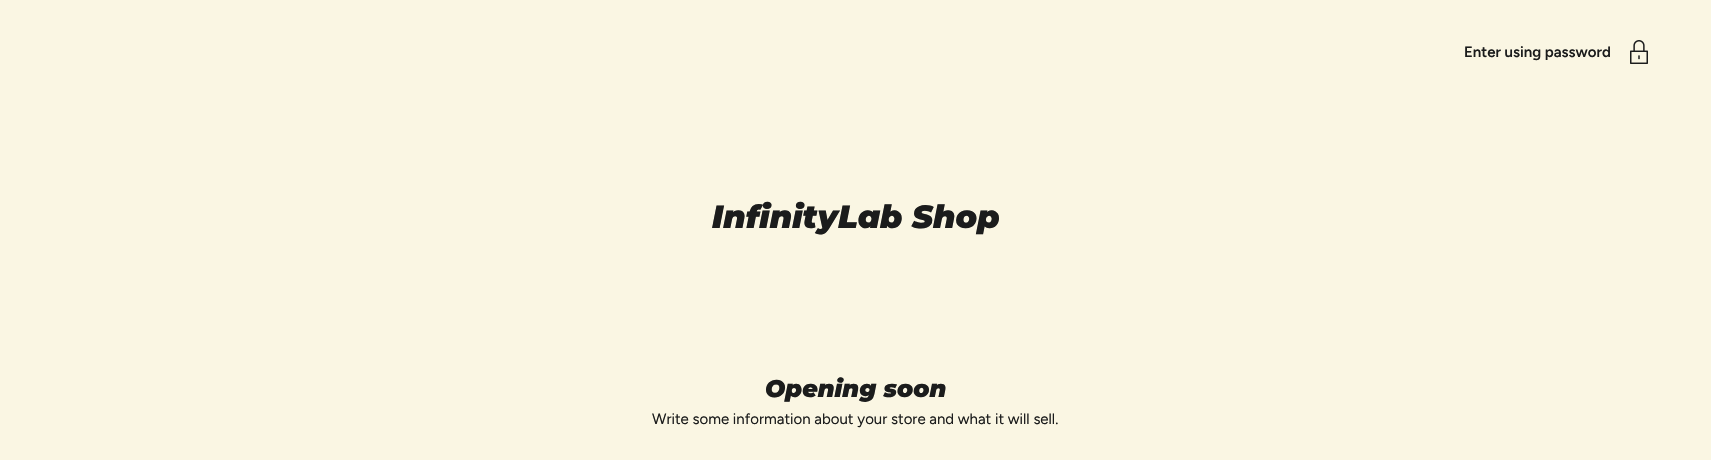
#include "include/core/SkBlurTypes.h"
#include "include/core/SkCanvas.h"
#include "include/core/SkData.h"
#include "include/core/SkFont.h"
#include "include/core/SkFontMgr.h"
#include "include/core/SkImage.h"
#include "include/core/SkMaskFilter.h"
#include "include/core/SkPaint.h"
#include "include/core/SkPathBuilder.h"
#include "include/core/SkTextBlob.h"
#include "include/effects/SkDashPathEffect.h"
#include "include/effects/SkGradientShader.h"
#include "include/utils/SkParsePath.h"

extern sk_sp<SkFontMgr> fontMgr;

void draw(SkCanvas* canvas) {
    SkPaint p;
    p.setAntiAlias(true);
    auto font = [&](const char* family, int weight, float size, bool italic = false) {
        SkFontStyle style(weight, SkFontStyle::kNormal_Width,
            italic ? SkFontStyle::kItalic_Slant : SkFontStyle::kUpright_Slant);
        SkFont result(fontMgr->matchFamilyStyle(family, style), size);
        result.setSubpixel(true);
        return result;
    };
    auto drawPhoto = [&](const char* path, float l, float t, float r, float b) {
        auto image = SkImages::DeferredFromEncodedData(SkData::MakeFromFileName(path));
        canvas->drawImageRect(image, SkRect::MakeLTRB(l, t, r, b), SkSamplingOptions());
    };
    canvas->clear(0xFFFAF6E3);
    auto font1 = font("Figtree", 600, 15);
    p.setColor(0xFF1B1C1C);
    canvas->drawString("Enter using password", 1464, 57, font1, p);
    drawPhoto("media/1.png", 1630, 40, 1648, 64);
    auto font2 = font("Montserrat", 900, 32, true);
    canvas->drawString("InfinityLab Shop", 712, 228, font2, p);
    auto font3 = font("Montserrat", 900, 24, true);
    canvas->drawString("Opening soon", 765, 397, font3, p);
    auto font4 = font("Figtree", 400, 15);
    canvas->drawString("Write some information about your store and what it will sell.", 652, 424, font4, p);
}
